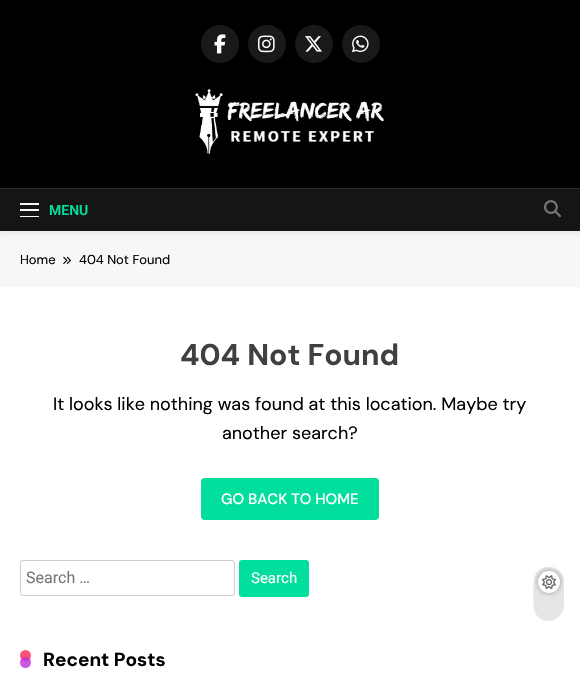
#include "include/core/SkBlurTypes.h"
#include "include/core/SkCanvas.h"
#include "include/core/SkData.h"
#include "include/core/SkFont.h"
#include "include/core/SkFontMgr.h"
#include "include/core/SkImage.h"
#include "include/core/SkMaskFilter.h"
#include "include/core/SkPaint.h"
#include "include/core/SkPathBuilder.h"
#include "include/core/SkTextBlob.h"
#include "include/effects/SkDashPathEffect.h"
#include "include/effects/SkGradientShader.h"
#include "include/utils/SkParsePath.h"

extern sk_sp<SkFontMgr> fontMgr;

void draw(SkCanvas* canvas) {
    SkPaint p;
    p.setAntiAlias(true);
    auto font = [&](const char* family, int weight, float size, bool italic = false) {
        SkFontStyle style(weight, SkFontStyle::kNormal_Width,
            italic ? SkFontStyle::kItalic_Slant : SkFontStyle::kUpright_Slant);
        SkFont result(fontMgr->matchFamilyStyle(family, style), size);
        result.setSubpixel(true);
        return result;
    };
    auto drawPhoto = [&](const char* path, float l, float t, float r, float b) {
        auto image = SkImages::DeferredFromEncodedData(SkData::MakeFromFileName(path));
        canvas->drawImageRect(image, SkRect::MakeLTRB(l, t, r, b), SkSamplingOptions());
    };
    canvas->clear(0xFFFFFFFF);
    p.setColor(0xFFF7F7F7);
    canvas->drawRect(SkRect::MakeLTRB(0, 231, 580, 287), p);
    p.setColor(0x0D000000);
    p.setMaskFilter(SkMaskFilter::MakeBlur(kNormal_SkBlurStyle, 2));
    canvas->drawRect(SkRect::MakeLTRB(0, 3, 580, 234), p);
    p.setMaskFilter(nullptr);
    p.setColor(0xFF000000);
    canvas->drawRect(SkRect::MakeLTRB(0, 0, 580, 188), p);
    p.setColor(0xFF191919);
    canvas->drawCircle(220, 44, 19, p);
    drawPhoto("media/1.png", 214, 34, 226, 54);
    canvas->drawCircle(267, 44, 19, p);
    drawPhoto("media/2.png", 258, 35, 275, 53);
    canvas->drawCircle(314, 44, 19, p);
    drawPhoto("media/3.png", 305, 36, 322, 52);
    canvas->drawCircle(361, 44, 19, p);
    drawPhoto("media/4.png", 352, 35, 369, 53);
    drawPhoto("media/5.png", 195, 89, 384, 154);
    {
        const struct { float l, t, r, b; SkColor color; } items[] = {
            {0, 189, 580, 231, 0xFF151515},
            {0, 188, 580, 189, 0xFF2C2C2C},
            {20, 203, 39, 205, 0xFFF8F8FF},
            {20, 209, 39, 211, 0xFFF8F8FF},
            {20, 216, 39, 217, 0xFFF8F8FF},
        };
        for (auto [l, t, r, b, color] : items) {
            p.setColor(color);
            canvas->drawRect(SkRect::MakeLTRB(l, t, r, b), p);
        }
    }
    auto font1 = font("Roboto", 600, 14);
    p.setColor(0xFF02DE9C);
    canvas->drawString("MENU", 49, 215, font1, p);
    drawPhoto("media/6.png", 544, 200, 561, 218);
    auto font2 = font("DM Sans", 400, 13);
    p.setColor(0xFF000000);
    canvas->drawString("Home", 20, 264, font2, p);
    drawPhoto("media/7.png", 63, 256, 71, 264);
    canvas->drawString("404 Not Found", 79, 264, font2, p);
    auto font3 = font("DM Sans", 700, 30);
    p.setColor(0xFF404040);
    canvas->drawString("404 Not Found", 180, 365, font3, p);
    auto font4 = font("DM Sans", 400, 18);
    p.setColor(0xFF000000);
    canvas->drawString("It looks like nothing was found at this location. Maybe try", 53, 410, font4, p);
    canvas->drawString("another search?", 222, 439, font4, p);
    p.setColor(0xFF02DE9C);
    canvas->drawRoundRect(SkRect::MakeLTRB(201, 478, 379, 520), 4, 4, p);
    auto font5 = font("DM Sans", 500, 15);
    p.setColor(0xFFFFFFFF);
    canvas->drawString("GO BACK TO HOME", 221, 504, font5, p);
    p.setStyle(SkPaint::kStroke_Style);
    p.setStrokeWidth(1);
    p.setColor(0xFFCCCCCC);
    canvas->drawRoundRect(SkRect::MakeLTRB(20.5f, 560.5f, 234.5f, 595.5f), 2.5f, 2.5f, p);
    auto font6 = font("Roboto", 400, 16);
    p.setStyle(SkPaint::kFill_Style);
    p.setColor(0xFF757575);
    canvas->drawString("Search …", 26, 583, font6, p);
    p.setColor(0xFF02DE9C);
    canvas->drawRoundRect(SkRect::MakeLTRB(239, 560, 309, 597), 3, 3, p);
    auto font7 = font("Roboto", 400, 15);
    p.setColor(0xFFFFFFFF);
    canvas->drawString("Search", 251, 583, font7, p);
    p.setColor(0xFFFF5075);
    canvas->drawCircle(25.5f, 655.5f, 5.5f, p);
    auto font8 = font("DM Sans", 700, 19);
    p.setColor(0xFF000000);
    canvas->drawString("Recent Posts", 43, 666, font8, p);
    p.setColor(0xCCBE2EDD);
    canvas->drawCircle(25.5f, 662.5f, 5.5f, p);
    p.setColor(0xFFE6E6E6);
    canvas->drawPath(SkPathBuilder().moveTo(564, 582).lineTo(564, 606).cubicTo(563, 622, 541, 627, 535, 612).cubicTo(533, 607, 533, 588, 534, 582).cubicTo(534, 562, 564, 562, 564, 582).close().detach(), p);
    p.setColor(0x59000000);
    p.setMaskFilter(SkMaskFilter::MakeBlur(kNormal_SkBlurStyle, 2.5f));
    canvas->drawRoundRect(SkRect::MakeLTRB(538, 571, 560, 593), 11, 11, p);
    p.setMaskFilter(nullptr);
    p.setColor(0xFFFFFFFF);
    canvas->drawCircle(549, 582, 11, p);
    drawPhoto("media/8.png", 542, 575, 556, 590);
}
